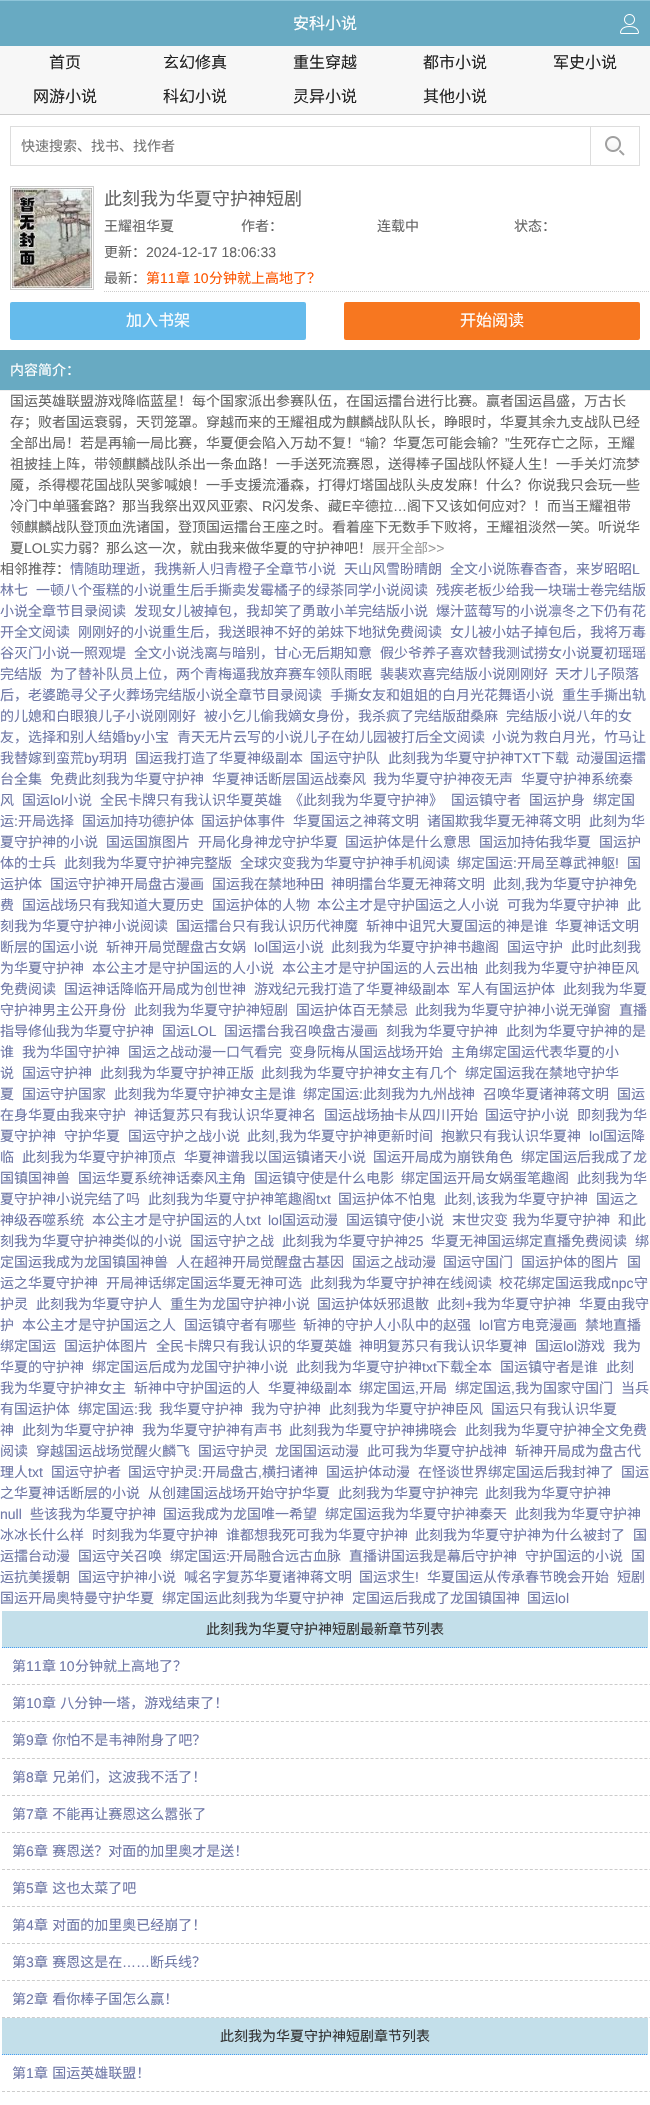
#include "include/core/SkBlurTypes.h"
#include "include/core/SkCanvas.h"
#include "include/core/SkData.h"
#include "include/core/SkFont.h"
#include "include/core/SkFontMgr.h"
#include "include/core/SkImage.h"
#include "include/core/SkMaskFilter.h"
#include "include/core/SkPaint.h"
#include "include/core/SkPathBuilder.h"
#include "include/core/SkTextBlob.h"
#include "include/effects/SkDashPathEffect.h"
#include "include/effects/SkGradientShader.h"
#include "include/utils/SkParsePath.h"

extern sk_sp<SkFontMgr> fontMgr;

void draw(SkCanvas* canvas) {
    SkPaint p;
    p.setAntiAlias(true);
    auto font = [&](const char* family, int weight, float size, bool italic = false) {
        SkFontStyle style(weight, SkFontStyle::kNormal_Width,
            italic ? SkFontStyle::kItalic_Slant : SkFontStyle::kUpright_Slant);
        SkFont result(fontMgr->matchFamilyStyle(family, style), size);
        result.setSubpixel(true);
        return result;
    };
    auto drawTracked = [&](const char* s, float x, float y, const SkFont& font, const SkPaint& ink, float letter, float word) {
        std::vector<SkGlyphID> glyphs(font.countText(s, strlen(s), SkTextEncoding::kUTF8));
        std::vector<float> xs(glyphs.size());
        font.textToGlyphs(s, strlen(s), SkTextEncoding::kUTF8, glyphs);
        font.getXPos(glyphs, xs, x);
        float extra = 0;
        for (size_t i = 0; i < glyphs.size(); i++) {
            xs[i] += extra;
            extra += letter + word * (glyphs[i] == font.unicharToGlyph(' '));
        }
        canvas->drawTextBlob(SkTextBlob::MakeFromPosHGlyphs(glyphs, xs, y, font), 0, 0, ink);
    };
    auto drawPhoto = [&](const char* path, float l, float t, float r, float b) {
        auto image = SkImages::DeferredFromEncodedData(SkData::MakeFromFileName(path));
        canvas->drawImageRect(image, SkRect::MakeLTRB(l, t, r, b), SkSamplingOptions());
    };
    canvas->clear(0xFFFFFFFF);
    p.setColor(0xFF68AAC2);
    canvas->drawRect(SkRect::MakeLTRB(0, 1, 650, 46), p);
    p.setColor(0xFF8EC5D9);
    canvas->drawRect(SkRect::MakeLTRB(0, 0, 650, 1), p);
    auto font1 = font("Noto Sans CJK SC", 400, 16);
    p.setColor(0xFFFFFFFF);
    canvas->drawString("安科小说", 293, 29, font1, p);
    drawPhoto("media/1.png", 620, 14, 639, 34);
    p.setColor(0xFFF7F7F7);
    canvas->drawRect(SkRect::MakeLTRB(0, 46, 650, 114), p);
    p.setColor(0xFFCCCCCC);
    canvas->drawRect(SkRect::MakeLTRB(0, 114, 650, 115), p);
    p.setColor(0xFF222222);
    {
        const struct { const char* s; float x, y; } items[] = {
            {"首页", 49, 68},
            {"玄幻修真", 163, 68},
            {"重生穿越", 293, 68},
            {"都市小说", 423, 68},
            {"军史小说", 553, 68},
            {"网游小说", 33, 102},
            {"科幻小说", 163, 102},
            {"灵异小说", 293, 102},
            {"其他小说", 423, 102},
        };
        for (auto [s, x, y] : items) {
            canvas->drawString(s, x, y, font1, p);
        }
    }
    p.setColor(0xFFDDDDDD);
    canvas->drawPath(SkPathBuilder().moveTo(10, 126).lineTo(640, 126).lineTo(589, 127).lineTo(11, 127).close().detach(), p);
    p.setColor(0xFFFFFFFF);
    canvas->drawPath(SkPathBuilder().moveTo(640, 126).lineTo(640, 166).lineTo(589, 165).lineTo(589, 127).close().detach(), p);
    p.setColor(0xFFDDDDDD);
    canvas->drawPath(SkPathBuilder().moveTo(640, 166).lineTo(10, 166).lineTo(11, 165).lineTo(589, 165).close().detach(), p);
    canvas->drawRect(SkRect::MakeLTRB(10, 126, 11, 166), p);
    auto font2 = font("Noto Sans CJK SC", 400, 14);
    p.setColor(0xFF757575);
    canvas->drawString("快速搜索、找书、找作者", 21, 151, font2, p);
    drawPhoto("media/2.png", 605, 136, 625, 156);
    p.setStyle(SkPaint::kStroke_Style);
    p.setStrokeWidth(1);
    p.setColor(0xFFDDDDDD);
    canvas->drawRect(SkRect::MakeLTRB(590.5f, 126.5f, 639.5f, 165.5f), p);
    p.setColor(0xFFCCCCCC);
    canvas->drawRect(SkRect::MakeLTRB(10.5f, 186.5f, 93.5f, 289.5f), p);
    drawPhoto("media/3.png", 12, 188, 92, 288);
    auto font3 = font("Noto Sans CJK SC", 400, 18);
    p.setStyle(SkPaint::kFill_Style);
    p.setColor(0xFF666666);
    canvas->drawString("此刻我为华夏守护神短剧", 104, 205, font3, p);
    p.setStyle(SkPaint::kStroke_Style);
    p.setColor(0xFFCCCCCC);
    p.setPathEffect(SkDashPathEffect::Make({{1, 1}}, 0));
    canvas->drawPath(SkPathBuilder().moveTo(104, 291.5f).lineTo(650, 291.5f).detach(), p);
    p.setPathEffect(nullptr);
    p.setStyle(SkPaint::kFill_Style);
    p.setColor(0xFF666666);
    {
        const struct { const char* s; float x, y; } items[] = {
            {"王耀祖华夏", 104, 231},
            {"作者：", 241, 231},
            {"连载中", 377, 231},
            {"状态：", 514, 231},
            {"更新：", 104, 257},
        };
        for (auto [s, x, y] : items) {
            canvas->drawString(s, x, y, font2, p);
        }
    }
    auto font4 = font("Liberation Sans", 400, 14);
    canvas->drawString("2024-12-17 18:06:33", 146, 257, font4, p);
    canvas->drawString("最新：", 104, 283, font2, p);
    p.setColor(0xFFFD5500);
    canvas->drawString("第", 146, 283, font2, p);
    canvas->drawString("11", 160, 283, font4, p);
    canvas->drawString("章", 176, 283, font2, p);
    canvas->drawString("10", 193, 283, font4, p);
    canvas->drawString("分钟就上高地了？", 209, 283, font2, p);
    p.setColor(0xFF65BBEC);
    canvas->drawRoundRect(SkRect::MakeLTRB(10, 302, 306, 340), 2, 2, p);
    p.setColor(0xFFFFFFFF);
    canvas->drawString("加入书架", 126, 326, font1, p);
    p.setColor(0xFFF77720);
    canvas->drawRoundRect(SkRect::MakeLTRB(344, 302, 640, 340), 2, 2, p);
    p.setColor(0xFFFFFFFF);
    canvas->drawString("开始阅读", 460, 326, font1, p);
    p.setColor(0xFF68AAC2);
    canvas->drawRect(SkRect::MakeLTRB(0, 350, 650, 390), p);
    p.setColor(0xFFEEEEEE);
    canvas->drawRect(SkRect::MakeLTRB(0, 390, 650, 391), p);
    p.setColor(0xFFFFFFFF);
    canvas->drawString("内容简介：", 10, 375, font2, p);
    p.setColor(0xFF666666);
    {
        const struct { const char* s; float x, y; } items[] = {
            {"国运英雄联盟游戏降临蓝星！每个国家派出参赛队伍，在国运擂台进行比赛。赢者国运昌盛，万古长", 10, 406},
            {"存；败者国运衰弱，天罚笼罩。穿越而来的王耀祖成为麒麟战队队长，睁眼时，华夏其余九支战队已经", 10, 427},
            {"全部出局！若是再输一局比赛，华夏便会陷入万劫不复！", 10, 448},
        };
        for (auto [s, x, y] : items) {
            canvas->drawString(s, x, y, font2, p);
        }
    }
    canvas->drawString("“", 360, 448, font4, p);
    canvas->drawString("输？华夏怎可能会输？", 365, 448, font2, p);
    canvas->drawString("”", 505, 448, font4, p);
    {
        const struct { const char* s; float x, y; } items[] = {
            {"生死存亡之际，王耀", 509, 448},
            {"祖披挂上阵，带领麒麟战队杀出一条血路！一手送死流赛恩，送得棒子国战队怀疑人生！一手关灯流梦", 10, 469},
            {"魇，杀得樱花国战队哭爹喊娘！一手支援流潘森，打得灯塔国战队头皮发麻！什么？你说我只会玩一些", 10, 490},
            {"冷门中单骚套路？那当我祭出双风亚索、", 10, 511},
        };
        for (auto [s, x, y] : items) {
            canvas->drawString(s, x, y, font2, p);
        }
    }
    canvas->drawString("R", 262, 511, font4, p);
    canvas->drawString("闪发条、藏", 272, 511, font2, p);
    canvas->drawString("E", 342, 511, font4, p);
    canvas->drawString("辛德拉", 351, 511, font2, p);
    canvas->drawString("…", 393, 511, font4, p);
    {
        const struct { const char* s; float x, y; } items[] = {
            {"阁下又该如何应对？！而当王耀祖带", 407, 511},
            {"领麒麟战队登顶血洗诸国，登顶国运擂台王座之时。看着座下无数手下败将，王耀祖淡然一笑。听说华", 10, 532},
            {"夏", 10, 553},
        };
        for (auto [s, x, y] : items) {
            canvas->drawString(s, x, y, font2, p);
        }
    }
    canvas->drawString("LOL", 24, 553, font4, p);
    canvas->drawString("实力弱？那么这一次，就由我来做华夏的守护神吧！", 50, 553, font2, p);
    p.setColor(0xFF999999);
    canvas->drawString("展开全部", 372, 553, font2, p);
    canvas->drawString(">>", 428, 553, font4, p);
    p.setColor(0xFF666666);
    canvas->drawString("相邻推荐：", 0, 574, font2, p);
    p.setColor(0xFF6F78A7);
    {
        const struct { const char* s; float x, y; } items[] = {
            {"情随助理逝，我携新人归青橙子全章节小说", 70, 574},
            {"天山风雪盼晴朗", 344, 574},
            {"全文小说陈春杳杳，来岁昭昭", 450, 574},
        };
        for (auto [s, x, y] : items) {
            canvas->drawString(s, x, y, font2, p);
        }
    }
    canvas->drawString("L", 632, 574, font4, p);
    {
        const struct { const char* s; float x, y; } items[] = {
            {"林七", 0, 595},
            {"一顿八个蛋糕的小说重生后手撕卖发霉橘子的绿茶同学小说阅读", 36, 595},
            {"残疾老板少给我一块瑞士卷完结版", 436, 595},
            {"小说全章节目录阅读", 0, 616},
            {"发现女儿被掉包，我却笑了勇敢小羊完结版小说", 134, 616},
            {"爆汁蓝莓写的小说凛冬之下仍有花", 436, 616},
            {"开全文阅读", 0, 637},
            {"刚刚好的小说重生后，我送眼神不好的弟妹下地狱免费阅读", 78, 637},
            {"女儿被小姑子掉包后，我将万毒", 450, 637},
            {"谷灭门小说一照观堤", 0, 658},
            {"全文小说浅离与暗别，甘心无后期知意", 134, 658},
            {"假少爷养子喜欢替我测试捞女小说夏初瑶瑶", 380, 658},
            {"完结版", 0, 679},
            {"为了替补队员上位，两个青梅逼我放弃赛车领队雨眠", 50, 679},
            {"裴裴欢喜完结版小说刚刚好", 380, 679},
            {"天才儿子陨落", 555, 679},
            {"后，老婆跪寻父子火葬场完结版小说全章节目录阅读", 0, 700},
            {"手撕女友和姐姐的白月光花舞语小说", 330, 700},
            {"重生手撕出轨", 562, 700},
            {"的儿媳和白眼狼儿子小说刚刚好", 0, 721},
            {"被小乞儿偷我嫡女身份，我杀疯了完结版甜桑麻", 204, 721},
            {"完结版小说八年的女", 506, 721},
            {"友，选择和别人结婚", 0, 742},
        };
        for (auto [s, x, y] : items) {
            canvas->drawString(s, x, y, font2, p);
        }
    }
    canvas->drawString("by", 126, 742, font4, p);
    {
        const struct { const char* s; float x, y; } items[] = {
            {"小宝", 141, 742},
            {"青天无片云写的小说儿子在幼儿园被打后全文阅读", 177, 742},
            {"小说为救白月光，竹马让", 492, 742},
            {"我替嫁到蛮荒", 0, 763},
        };
        for (auto [s, x, y] : items) {
            canvas->drawString(s, x, y, font2, p);
        }
    }
    canvas->drawString("by", 84, 763, font4, p);
    {
        const struct { const char* s; float x, y; } items[] = {
            {"玥玥", 99, 763},
            {"国运我打造了华夏神级副本", 135, 763},
            {"国运守护队", 310, 763},
            {"此刻我为华夏守护神", 388, 763},
        };
        for (auto [s, x, y] : items) {
            canvas->drawString(s, x, y, font2, p);
        }
    }
    canvas->drawString("TXT", 514, 763, font4, p);
    {
        const struct { const char* s; float x, y; } items[] = {
            {"下载", 541, 763},
            {"动漫国运擂", 576, 763},
            {"台全集", 0, 784},
            {"免费此刻我为华夏守护神", 50, 784},
            {"华夏神话断层国运战秦风", 212, 784},
            {"我为华夏守护神夜无声", 373, 784},
            {"华夏守护神系统秦", 521, 784},
            {"风", 0, 805},
            {"国运", 22, 805},
        };
        for (auto [s, x, y] : items) {
            canvas->drawString(s, x, y, font2, p);
        }
    }
    canvas->drawString("lol", 50, 805, font4, p);
    {
        const struct { const char* s; float x, y; } items[] = {
            {"小说", 64, 805},
            {"全民卡牌只有我认识华夏英雄", 100, 805},
            {"《此刻我为华夏守护神》", 289, 805},
            {"国运镇守者", 451, 805},
            {"国运护身", 529, 805},
            {"绑定国", 593, 805},
            {"运", 0, 826},
        };
        for (auto [s, x, y] : items) {
            canvas->drawString(s, x, y, font2, p);
        }
    }
    canvas->drawString(":", 14, 826, font4, p);
    {
        const struct { const char* s; float x, y; } items[] = {
            {"开局选择", 18, 826},
            {"国运加持功德护体", 82, 826},
            {"国运护体事件", 201, 826},
            {"华夏国运之神蒋文明", 293, 826},
            {"诸国欺我华夏无神蒋文明", 427, 826},
            {"此刻为华", 589, 826},
            {"夏守护神的小说", 0, 847},
            {"国运国旗图片", 106, 847},
            {"开局化身神龙守护华夏", 198, 847},
            {"国运护体是什么意思", 345, 847},
            {"国运加持佑我华夏", 479, 847},
            {"国运护", 599, 847},
            {"体的士兵", 0, 868},
            {"此刻我为华夏守护神完整版", 64, 868},
            {"全球灾变我为华夏守护神手机阅读", 240, 868},
            {"绑定国运", 457, 868},
        };
        for (auto [s, x, y] : items) {
            canvas->drawString(s, x, y, font2, p);
        }
    }
    canvas->drawString(":", 513, 868, font4, p);
    canvas->drawString("开局至尊武神躯", 517, 868, font2, p);
    canvas->drawString("!", 615, 868, font4, p);
    {
        const struct { const char* s; float x, y; } items[] = {
            {"国", 627, 868},
            {"运护体", 0, 889},
            {"国运守护神开局盘古漫画", 50, 889},
            {"国运我在禁地种田", 212, 889},
            {"神明擂台华夏无神蒋文明", 331, 889},
            {"此刻", 493, 889},
        };
        for (auto [s, x, y] : items) {
            canvas->drawString(s, x, y, font2, p);
        }
    }
    canvas->drawString(",", 521, 889, font4, p);
    {
        const struct { const char* s; float x, y; } items[] = {
            {"我为华夏守护神免", 525, 889},
            {"费", 0, 910},
            {"国运战场只有我知道大夏历史", 22, 910},
            {"国运护体的人物", 212, 910},
            {"本公主才是守护国运之人小说", 317, 910},
            {"可我为华夏守护神", 507, 910},
            {"此", 627, 910},
            {"刻我为华夏守护神小说阅读", 0, 931},
            {"国运擂台只有我认识历代神魔", 176, 931},
            {"斩神中诅咒大夏国运的神是谁", 366, 931},
            {"华夏神话文明", 555, 931},
            {"断层的国运小说", 0, 952},
            {"斩神开局觉醒盘古女娲", 106, 952},
        };
        for (auto [s, x, y] : items) {
            canvas->drawString(s, x, y, font2, p);
        }
    }
    canvas->drawString("lol", 254, 952, font4, p);
    {
        const struct { const char* s; float x, y; } items[] = {
            {"国运小说", 268, 952},
            {"此刻我为华夏守护神书趣阁", 331, 952},
            {"国运守护", 507, 952},
            {"此时此刻我", 571, 952},
            {"为华夏守护神", 0, 973},
            {"本公主才是守护国运的人小说", 92, 973},
            {"本公主才是守护国运的人云出柚", 282, 973},
            {"此刻我为华夏守护神臣风", 485, 973},
            {"免费阅读", 0, 994},
            {"国运神话降临开局成为创世神", 64, 994},
            {"游戏纪元我打造了华夏神级副本", 254, 994},
            {"军人有国运护体", 457, 994},
            {"此刻我为华夏", 563, 994},
            {"守护神男主公开身份", 0, 1015},
            {"此刻我为华夏守护神短剧", 134, 1015},
            {"国运护体百无禁忌", 296, 1015},
            {"此刻我为华夏守护神小说无弹窗", 415, 1015},
            {"直播", 619, 1015},
            {"指导修仙我为华夏守护神", 0, 1036},
            {"国运", 162, 1036},
        };
        for (auto [s, x, y] : items) {
            canvas->drawString(s, x, y, font2, p);
        }
    }
    canvas->drawString("LOL", 190, 1036, font4, p);
    {
        const struct { const char* s; float x, y; } items[] = {
            {"国运擂台我召唤盘古漫画", 224, 1036},
            {"刻我为华夏守护神", 386, 1036},
            {"此刻为华夏守护神的是", 506, 1036},
            {"谁", 0, 1057},
            {"我为华国守护神", 22, 1057},
            {"国运之战动漫一口气看完", 128, 1057},
            {"变身阮梅从国运战场开始", 289, 1057},
            {"主角绑定国运代表华夏的小", 451, 1057},
            {"说", 0, 1078},
            {"国运守护神", 22, 1078},
            {"此刻我为华夏守护神正版", 100, 1078},
            {"此刻我为华夏守护神女主有几个", 261, 1078},
            {"绑定国运我在禁地守护华", 465, 1078},
            {"夏", 0, 1099},
            {"国运守护国家", 22, 1099},
            {"此刻我为华夏守护神女主是谁", 114, 1099},
            {"绑定国运", 303, 1099},
        };
        for (auto [s, x, y] : items) {
            canvas->drawString(s, x, y, font2, p);
        }
    }
    canvas->drawString(":", 359, 1099, font4, p);
    {
        const struct { const char* s; float x, y; } items[] = {
            {"此刻我为九州战神", 363, 1099},
            {"召唤华夏诸神蒋文明", 483, 1099},
            {"国运", 617, 1099},
            {"在身华夏由我来守护", 0, 1120},
            {"神话复苏只有我认识华夏神名", 134, 1120},
            {"国运战场抽卡从四川开始", 324, 1120},
            {"国运守护小说", 485, 1120},
            {"即刻我为华", 577, 1120},
            {"夏守护神", 0, 1141},
            {"守护华夏", 64, 1141},
            {"国运守护之战小说", 128, 1141},
            {"此刻", 247, 1141},
        };
        for (auto [s, x, y] : items) {
            canvas->drawString(s, x, y, font2, p);
        }
    }
    canvas->drawString(",", 275, 1141, font4, p);
    canvas->drawString("我为华夏守护神更新时间", 279, 1141, font2, p);
    canvas->drawString("抱歉只有我认识华夏神", 441, 1141, font2, p);
    canvas->drawString("lol", 589, 1141, font4, p);
    {
        const struct { const char* s; float x, y; } items[] = {
            {"国运降", 603, 1141},
            {"临", 0, 1162},
            {"此刻我为华夏守护神顶点", 22, 1162},
            {"华夏神谱我以国运镇诸天小说", 184, 1162},
            {"国运开局成为崩铁角色", 373, 1162},
            {"绑定国运后我成了龙", 521, 1162},
            {"国镇国神兽", 0, 1183},
            {"国运华夏系统神话秦风主角", 78, 1183},
            {"国运镇守使是什么电影", 254, 1183},
            {"绑定国运开局女娲蛋笔趣阁", 401, 1183},
            {"此刻我为华", 577, 1183},
            {"夏守护神小说完结了吗", 0, 1204},
            {"此刻我为华夏守护神笔趣阁", 148, 1204},
        };
        for (auto [s, x, y] : items) {
            canvas->drawString(s, x, y, font2, p);
        }
    }
    canvas->drawString("txt", 316, 1204, font4, p);
    canvas->drawString("国运护体不怕鬼", 338, 1204, font2, p);
    canvas->drawString("此刻", 444, 1204, font2, p);
    canvas->drawString(",", 472, 1204, font4, p);
    {
        const struct { const char* s; float x, y; } items[] = {
            {"该我为华夏守护神", 476, 1204},
            {"国运之", 596, 1204},
            {"神级吞噬系统", 0, 1225},
            {"本公主才是守护国运的人", 92, 1225},
        };
        for (auto [s, x, y] : items) {
            canvas->drawString(s, x, y, font2, p);
        }
    }
    canvas->drawString("txt", 246, 1225, font4, p);
    canvas->drawString("lol", 268, 1225, font4, p);
    canvas->drawString("国运动漫", 282, 1225, font2, p);
    canvas->drawString("国运镇守使小说", 346, 1225, font2, p);
    drawTracked("末世灾变 我为华夏守护神", 452, 1225, font2, p, 0, 1);
    {
        const struct { const char* s; float x, y; } items[] = {
            {"和此", 618, 1225},
            {"刻我为华夏守护神类似的小说", 0, 1246},
            {"国运守护之战", 190, 1246},
            {"此刻我为华夏守护神", 282, 1246},
        };
        for (auto [s, x, y] : items) {
            canvas->drawString(s, x, y, font2, p);
        }
    }
    canvas->drawString("25", 408, 1246, font4, p);
    {
        const struct { const char* s; float x, y; } items[] = {
            {"华夏无神国运绑定直播免费阅读", 431, 1246},
            {"绑", 635, 1246},
            {"定国运我成为龙国镇国神兽", 0, 1267},
            {"人在超神开局觉醒盘古基因", 176, 1267},
            {"国运之战动漫", 352, 1267},
            {"国运守国门", 443, 1267},
            {"国运护体的图片", 521, 1267},
            {"国", 627, 1267},
            {"运之华夏守护神", 0, 1288},
            {"开局神话绑定国运华夏无神可选", 106, 1288},
            {"此刻我为华夏守护神在线阅读", 310, 1288},
            {"校花绑定国运我成", 499, 1288},
        };
        for (auto [s, x, y] : items) {
            canvas->drawString(s, x, y, font2, p);
        }
    }
    canvas->drawString("npc", 611, 1288, font4, p);
    {
        const struct { const char* s; float x, y; } items[] = {
            {"守", 634, 1288},
            {"护灵", 0, 1309},
            {"此刻我为华夏守护人", 36, 1309},
            {"重生为龙国守护神小说", 170, 1309},
            {"国运护体妖邪退散", 317, 1309},
            {"此刻", 437, 1309},
        };
        for (auto [s, x, y] : items) {
            canvas->drawString(s, x, y, font2, p);
        }
    }
    canvas->drawString("+", 465, 1309, font4, p);
    {
        const struct { const char* s; float x, y; } items[] = {
            {"我为华夏守护神", 473, 1309},
            {"华夏由我守", 579, 1309},
            {"护", 0, 1330},
            {"本公主才是守护国运之人", 22, 1330},
            {"国运镇守者有哪些", 184, 1330},
            {"斩神的守护人小队中的赵强", 303, 1330},
        };
        for (auto [s, x, y] : items) {
            canvas->drawString(s, x, y, font2, p);
        }
    }
    canvas->drawString("lol", 479, 1330, font4, p);
    {
        const struct { const char* s; float x, y; } items[] = {
            {"官方电竞漫画", 493, 1330},
            {"禁地直播", 585, 1330},
            {"绑定国运", 0, 1351},
            {"国运护体图片", 64, 1351},
            {"全民卡牌只有我认识的华夏英雄", 156, 1351},
            {"神明复苏只有我认识华夏神", 359, 1351},
            {"国运", 535, 1351},
        };
        for (auto [s, x, y] : items) {
            canvas->drawString(s, x, y, font2, p);
        }
    }
    canvas->drawString("lol", 563, 1351, font4, p);
    {
        const struct { const char* s; float x, y; } items[] = {
            {"游戏", 577, 1351},
            {"我为", 613, 1351},
            {"华夏的守护神", 0, 1372},
            {"绑定国运后成为龙国守护神小说", 92, 1372},
            {"此刻我为华夏守护神", 296, 1372},
        };
        for (auto [s, x, y] : items) {
            canvas->drawString(s, x, y, font2, p);
        }
    }
    canvas->drawString("txt", 422, 1372, font4, p);
    {
        const struct { const char* s; float x, y; } items[] = {
            {"下载全本", 436, 1372},
            {"国运镇守者是谁", 500, 1372},
            {"此刻", 606, 1372},
            {"我为华夏守护神女主", 0, 1393},
            {"斩神中守护国运的人", 134, 1393},
            {"华夏神级副本", 268, 1393},
            {"绑定国运", 359, 1393},
        };
        for (auto [s, x, y] : items) {
            canvas->drawString(s, x, y, font2, p);
        }
    }
    canvas->drawString(",", 415, 1393, font4, p);
    canvas->drawString("开局", 419, 1393, font2, p);
    canvas->drawString("绑定国运", 455, 1393, font2, p);
    canvas->drawString(",", 511, 1393, font4, p);
    {
        const struct { const char* s; float x, y; } items[] = {
            {"我为国家守国门", 515, 1393},
            {"当兵", 621, 1393},
            {"有国运护体", 0, 1414},
            {"绑定国运", 78, 1414},
        };
        for (auto [s, x, y] : items) {
            canvas->drawString(s, x, y, font2, p);
        }
    }
    canvas->drawString(":", 134, 1414, font4, p);
    {
        const struct { const char* s; float x, y; } items[] = {
            {"我", 138, 1414},
            {"我华夏守护神", 159, 1414},
            {"我为守护神", 251, 1414},
            {"此刻我为华夏守护神臣风", 329, 1414},
            {"国运只有我认识华夏", 491, 1414},
            {"神", 0, 1435},
            {"此刻为华夏守护神", 22, 1435},
            {"我为华夏守护神有声书", 142, 1435},
            {"此刻我为华夏守护神拂晓会", 289, 1435},
            {"此刻我为华夏守护神全文免费", 465, 1435},
            {"阅读", 0, 1456},
            {"穿越国运战场觉醒火麟飞", 36, 1456},
            {"国运守护灵", 198, 1456},
            {"龙国国运动漫", 275, 1456},
            {"此可我为华夏守护战神", 367, 1456},
            {"斩神开局成为盘古代", 515, 1456},
            {"理人", 0, 1477},
        };
        for (auto [s, x, y] : items) {
            canvas->drawString(s, x, y, font2, p);
        }
    }
    canvas->drawString("txt", 28, 1477, font4, p);
    canvas->drawString("国运守护者", 51, 1477, font2, p);
    canvas->drawString("国运守护灵", 128, 1477, font2, p);
    canvas->drawString(":", 198, 1477, font4, p);
    canvas->drawString("开局盘古", 202, 1477, font2, p);
    canvas->drawString(",", 258, 1477, font4, p);
    {
        const struct { const char* s; float x, y; } items[] = {
            {"横扫诸神", 262, 1477},
            {"国运护体动漫", 326, 1477},
            {"在怪谈世界绑定国运后我封神了", 418, 1477},
            {"国运", 621, 1477},
            {"之华夏神话断层的小说", 0, 1498},
            {"从创建国运战场开始守护华夏", 148, 1498},
            {"此刻我为华夏守护神完", 338, 1498},
            {"此刻我为华夏守护神", 485, 1498},
        };
        for (auto [s, x, y] : items) {
            canvas->drawString(s, x, y, font2, p);
        }
    }
    canvas->drawString("null", 0, 1519, font4, p);
    {
        const struct { const char* s; float x, y; } items[] = {
            {"些该我为华夏守护神", 30, 1519},
            {"国运我成为龙国唯一希望", 163, 1519},
            {"绑定国运我为华夏守护神秦天", 325, 1519},
            {"此刻我为华夏守护神", 515, 1519},
            {"冰冰长什么样", 0, 1540},
            {"时刻我为华夏守护神", 92, 1540},
            {"谁都想我死可我为华夏守护神", 226, 1540},
            {"此刻我为华夏守护神为什么被封了", 415, 1540},
            {"国", 633, 1540},
            {"运擂台动漫", 0, 1561},
            {"国运守关召唤", 78, 1561},
            {"绑定国运", 170, 1561},
        };
        for (auto [s, x, y] : items) {
            canvas->drawString(s, x, y, font2, p);
        }
    }
    canvas->drawString(":", 226, 1561, font4, p);
    {
        const struct { const char* s; float x, y; } items[] = {
            {"开局融合远古血脉", 229, 1561},
            {"直播讲国运我是幕后守护神", 349, 1561},
            {"守护国运的小说", 525, 1561},
            {"国", 631, 1561},
            {"运抗美援朝", 0, 1582},
            {"国运守护神小说", 78, 1582},
            {"喊名字复苏华夏诸神蒋文明", 184, 1582},
            {"国运求生", 359, 1582},
        };
        for (auto [s, x, y] : items) {
            canvas->drawString(s, x, y, font2, p);
        }
    }
    canvas->drawString("!", 415, 1582, font4, p);
    {
        const struct { const char* s; float x, y; } items[] = {
            {"华夏国运从传承春节晚会开始", 427, 1582},
            {"短剧", 617, 1582},
            {"国运开局奥特曼守护华夏", 0, 1603},
            {"绑定国运此刻我为华夏守护神", 162, 1603},
            {"定国运后我成了龙国镇国神", 352, 1603},
            {"国运", 527, 1603},
        };
        for (auto [s, x, y] : items) {
            canvas->drawString(s, x, y, font2, p);
        }
    }
    canvas->drawString("lol", 555, 1603, font4, p);
    p.setColor(0xFFC3DFEA);
    canvas->drawRect(SkRect::MakeLTRB(2, 1611, 648, 1648), p);
    p.setStyle(SkPaint::kStroke_Style);
    p.setColor(0xFF459DF5);
    p.setPathEffect(SkDashPathEffect::Make({{1, 1}}, 0));
    canvas->drawPath(SkPathBuilder().moveTo(2, 1647.5f).lineTo(648, 1647.5f).detach(), p);
    p.setPathEffect(nullptr);
    p.setStyle(SkPaint::kFill_Style);
    p.setColor(0xFF333333);
    canvas->drawString("此刻我为华夏守护神短剧最新章节列表", 206, 1634, font2, p);
    p.setStyle(SkPaint::kStroke_Style);
    p.setColor(0xFFCCCCCC);
    p.setPathEffect(SkDashPathEffect::Make({{3, 1.98f}}, 0));
    canvas->drawPath(SkPathBuilder().moveTo(2, 1684.5f).lineTo(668, 1684.5f).detach(), p);
    p.setPathEffect(nullptr);
    p.setStyle(SkPaint::kFill_Style);
    p.setColor(0xFF6F78A7);
    canvas->drawString("第", 12, 1671, font2, p);
    canvas->drawString("11", 26, 1671, font4, p);
    canvas->drawString("章", 42, 1671, font2, p);
    canvas->drawString("10", 59, 1671, font4, p);
    canvas->drawString("分钟就上高地了？", 75, 1671, font2, p);
    p.setStyle(SkPaint::kStroke_Style);
    p.setColor(0xFFCCCCCC);
    p.setPathEffect(SkDashPathEffect::Make({{3, 1.98f}}, 0));
    canvas->drawPath(SkPathBuilder().moveTo(2, 1721.5f).lineTo(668, 1721.5f).detach(), p);
    p.setPathEffect(nullptr);
    p.setStyle(SkPaint::kFill_Style);
    p.setColor(0xFF6F78A7);
    canvas->drawString("第", 12, 1708, font2, p);
    canvas->drawString("10", 26, 1708, font4, p);
    drawTracked("章 八分钟一塔，游戏结束了！", 42, 1708, font2, p, 0, 1);
    p.setStyle(SkPaint::kStroke_Style);
    p.setColor(0xFFCCCCCC);
    p.setPathEffect(SkDashPathEffect::Make({{3, 1.98f}}, 0));
    canvas->drawPath(SkPathBuilder().moveTo(2, 1758.5f).lineTo(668, 1758.5f).detach(), p);
    p.setPathEffect(nullptr);
    p.setStyle(SkPaint::kFill_Style);
    p.setColor(0xFF6F78A7);
    canvas->drawString("第", 12, 1745, font2, p);
    canvas->drawString("9", 26, 1745, font4, p);
    drawTracked("章 你怕不是韦神附身了吧？", 34, 1745, font2, p, 0, 1);
    p.setStyle(SkPaint::kStroke_Style);
    p.setColor(0xFFCCCCCC);
    p.setPathEffect(SkDashPathEffect::Make({{3, 1.98f}}, 0));
    canvas->drawPath(SkPathBuilder().moveTo(2, 1795.5f).lineTo(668, 1795.5f).detach(), p);
    p.setPathEffect(nullptr);
    p.setStyle(SkPaint::kFill_Style);
    p.setColor(0xFF6F78A7);
    canvas->drawString("第", 12, 1782, font2, p);
    canvas->drawString("8", 26, 1782, font4, p);
    drawTracked("章 兄弟们，这波我不活了！", 34, 1782, font2, p, 0, 1);
    p.setStyle(SkPaint::kStroke_Style);
    p.setColor(0xFFCCCCCC);
    p.setPathEffect(SkDashPathEffect::Make({{3, 1.98f}}, 0));
    canvas->drawPath(SkPathBuilder().moveTo(2, 1832.5f).lineTo(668, 1832.5f).detach(), p);
    p.setPathEffect(nullptr);
    p.setStyle(SkPaint::kFill_Style);
    p.setColor(0xFF6F78A7);
    canvas->drawString("第", 12, 1819, font2, p);
    canvas->drawString("7", 26, 1819, font4, p);
    drawTracked("章 不能再让赛恩这么嚣张了", 34, 1819, font2, p, 0, 1);
    p.setStyle(SkPaint::kStroke_Style);
    p.setColor(0xFFCCCCCC);
    p.setPathEffect(SkDashPathEffect::Make({{3, 1.98f}}, 0));
    canvas->drawPath(SkPathBuilder().moveTo(2, 1869.5f).lineTo(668, 1869.5f).detach(), p);
    p.setPathEffect(nullptr);
    p.setStyle(SkPaint::kFill_Style);
    p.setColor(0xFF6F78A7);
    canvas->drawString("第", 12, 1856, font2, p);
    canvas->drawString("6", 26, 1856, font4, p);
    drawTracked("章 赛恩送？对面的加里奥才是送！", 34, 1856, font2, p, 0, 1);
    p.setStyle(SkPaint::kStroke_Style);
    p.setColor(0xFFCCCCCC);
    p.setPathEffect(SkDashPathEffect::Make({{3, 1.98f}}, 0));
    canvas->drawPath(SkPathBuilder().moveTo(2, 1906.5f).lineTo(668, 1906.5f).detach(), p);
    p.setPathEffect(nullptr);
    p.setStyle(SkPaint::kFill_Style);
    p.setColor(0xFF6F78A7);
    canvas->drawString("第", 12, 1893, font2, p);
    canvas->drawString("5", 26, 1893, font4, p);
    drawTracked("章 这也太菜了吧", 34, 1893, font2, p, 0, 1);
    p.setStyle(SkPaint::kStroke_Style);
    p.setColor(0xFFCCCCCC);
    p.setPathEffect(SkDashPathEffect::Make({{3, 1.98f}}, 0));
    canvas->drawPath(SkPathBuilder().moveTo(2, 1943.5f).lineTo(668, 1943.5f).detach(), p);
    p.setPathEffect(nullptr);
    p.setStyle(SkPaint::kFill_Style);
    p.setColor(0xFF6F78A7);
    canvas->drawString("第", 12, 1930, font2, p);
    canvas->drawString("4", 26, 1930, font4, p);
    drawTracked("章 对面的加里奥已经崩了！", 34, 1930, font2, p, 0, 1);
    p.setStyle(SkPaint::kStroke_Style);
    p.setColor(0xFFCCCCCC);
    p.setPathEffect(SkDashPathEffect::Make({{3, 1.98f}}, 0));
    canvas->drawPath(SkPathBuilder().moveTo(2, 1980.5f).lineTo(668, 1980.5f).detach(), p);
    p.setPathEffect(nullptr);
    p.setStyle(SkPaint::kFill_Style);
    p.setColor(0xFF6F78A7);
    canvas->drawString("第", 12, 1967, font2, p);
    canvas->drawString("3", 26, 1967, font4, p);
    drawTracked("章 赛恩这是在", 34, 1967, font2, p, 0, 1);
    canvas->drawString("……", 122, 1967, font4, p);
    canvas->drawString("断兵线？", 150, 1967, font2, p);
    p.setStyle(SkPaint::kStroke_Style);
    p.setColor(0xFFCCCCCC);
    p.setPathEffect(SkDashPathEffect::Make({{3, 1.98f}}, 0));
    canvas->drawPath(SkPathBuilder().moveTo(2, 2017.5f).lineTo(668, 2017.5f).detach(), p);
    p.setPathEffect(nullptr);
    p.setStyle(SkPaint::kFill_Style);
    p.setColor(0xFF6F78A7);
    canvas->drawString("第", 12, 2004, font2, p);
    canvas->drawString("2", 26, 2004, font4, p);
    drawTracked("章 看你棒子国怎么赢！", 34, 2004, font2, p, 0, 1);
    p.setColor(0xFFC3DFEA);
    canvas->drawRect(SkRect::MakeLTRB(2, 2018, 648, 2055), p);
    p.setStyle(SkPaint::kStroke_Style);
    p.setColor(0xFF459DF5);
    p.setPathEffect(SkDashPathEffect::Make({{1, 1}}, 0));
    canvas->drawPath(SkPathBuilder().moveTo(2, 2054.5f).lineTo(648, 2054.5f).detach(), p);
    p.setPathEffect(nullptr);
    p.setStyle(SkPaint::kFill_Style);
    p.setColor(0xFF333333);
    canvas->drawString("此刻我为华夏守护神短剧章节列表", 220, 2041, font2, p);
    p.setStyle(SkPaint::kStroke_Style);
    p.setColor(0xFFCCCCCC);
    p.setPathEffect(SkDashPathEffect::Make({{3, 1.98f}}, 0));
    canvas->drawPath(SkPathBuilder().moveTo(2, 2091.5f).lineTo(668, 2091.5f).detach(), p);
    p.setPathEffect(nullptr);
    p.setStyle(SkPaint::kFill_Style);
    p.setColor(0xFF6F78A7);
    canvas->drawString("第", 12, 2078, font2, p);
    canvas->drawString("1", 26, 2078, font4, p);
    drawTracked("章 国运英雄联盟！", 34, 2078, font2, p, 0, 1);
}
